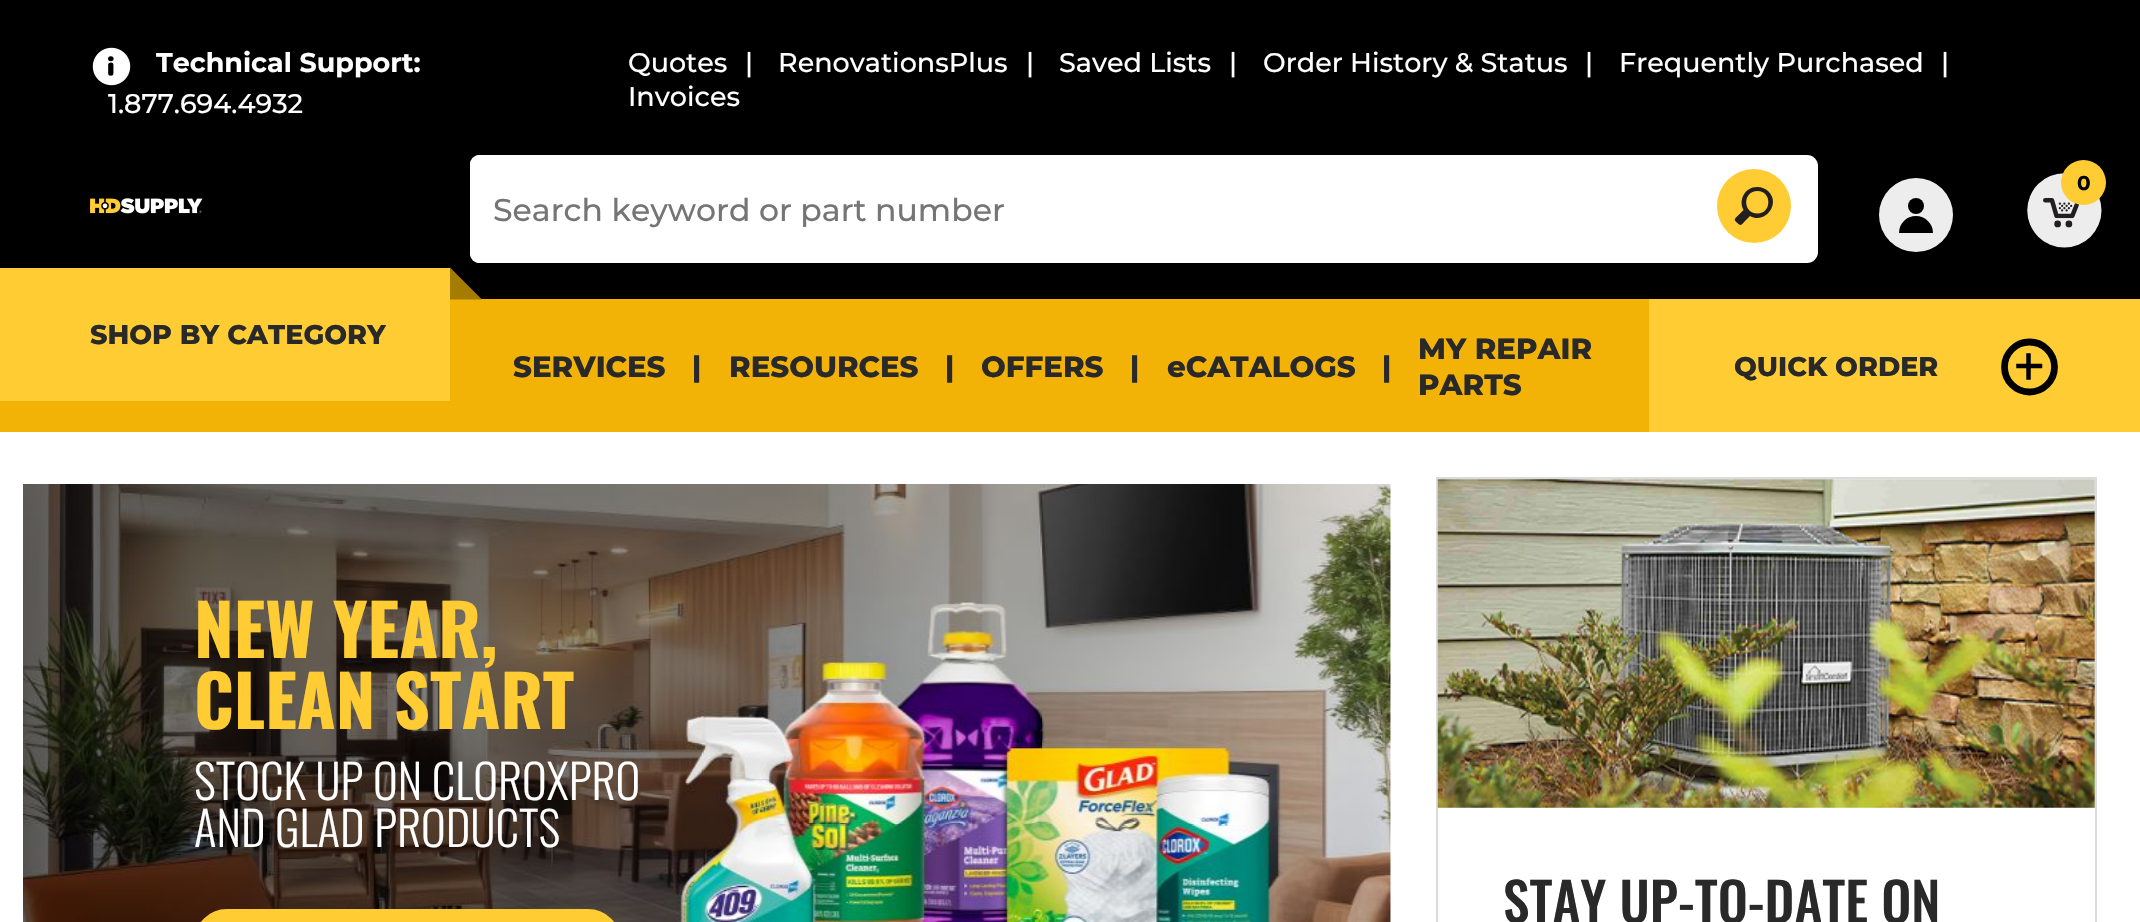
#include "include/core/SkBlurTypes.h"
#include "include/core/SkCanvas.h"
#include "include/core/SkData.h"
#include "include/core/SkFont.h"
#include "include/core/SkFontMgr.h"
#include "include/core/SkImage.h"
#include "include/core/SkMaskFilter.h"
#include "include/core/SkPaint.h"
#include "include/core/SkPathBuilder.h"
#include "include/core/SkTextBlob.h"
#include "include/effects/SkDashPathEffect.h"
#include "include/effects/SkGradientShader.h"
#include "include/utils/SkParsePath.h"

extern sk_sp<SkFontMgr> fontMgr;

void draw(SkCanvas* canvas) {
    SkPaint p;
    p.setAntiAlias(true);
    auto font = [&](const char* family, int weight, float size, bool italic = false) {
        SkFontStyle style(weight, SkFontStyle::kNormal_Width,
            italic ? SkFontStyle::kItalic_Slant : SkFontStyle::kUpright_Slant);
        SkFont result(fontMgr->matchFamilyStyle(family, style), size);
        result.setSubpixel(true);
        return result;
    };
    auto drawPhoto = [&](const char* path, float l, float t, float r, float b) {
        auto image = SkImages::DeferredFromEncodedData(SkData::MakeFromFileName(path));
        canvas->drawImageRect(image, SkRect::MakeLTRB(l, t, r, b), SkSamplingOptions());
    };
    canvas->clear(0xFFFFFFFF);
    p.setColor(0xFF000000);
    canvas->drawRect(SkRect::MakeLTRB(0, 0, 2140, 299), p);
    drawPhoto("media/1.png", 92, 47, 131, 86);
    auto font1 = font("Montserrat", 700, 27);
    p.setColor(0xFFFFFFFF);
    canvas->drawString("Technical Support:", 156, 72, font1, p);
    auto font2 = font("Montserrat", 500, 27);
    {
        const struct { const char* s; float x, y; } items[] = {
            {"1.877.694.4932", 108, 113},
            {"Quotes", 628, 72},
            {"|", 745, 72},
            {"RenovationsPlus", 778, 72},
            {"|", 1026, 72},
            {"Saved Lists", 1059, 72},
            {"|", 1229, 72},
            {"Order History & Status", 1263, 72},
            {"|", 1585, 72},
            {"Frequently Purchased", 1619, 72},
            {"|", 1941, 72},
            {"Invoices", 628, 106},
        };
        for (auto [s, x, y] : items) {
            canvas->drawString(s, x, y, font2, p);
        }
    }
    drawPhoto("media/2.png", 90, 198, 203, 214);
    canvas->drawRoundRect(SkRect::MakeLTRB(470, 155, 1818, 263), 11, 11, p);
    canvas->drawRoundRect(SkRect::MakeLTRB(470, 155, 1805, 263), 9, 9, p);
    canvas->drawRoundRect(SkRect::MakeLTRB(470, 155, 1805, 263), 11, 11, p);
    auto font3 = font("Montserrat", 500, 31.5f);
    p.setColor(0xFF757575);
    canvas->drawString("Search keyword or part number", 493, 221, font3, p);
    p.setColor(0xFFFFCC33);
    canvas->drawCircle(1754, 206, 37, p);
    p.setColor(0xFF231F20);
    canvas->drawPath(SkPathBuilder(SkPathFillType::kEvenOdd).moveTo(1757.5f, 213.5f).cubicTo(1742.5f, 213.5f, 1742.5f, 191, 1757.5f, 191).cubicTo(1772, 191, 1772, 213.5f, 1757.5f, 213.5f).moveTo(1757.5f, 187).cubicTo(1745.5f, 186.5f, 1738, 199.5f, 1743.5f, 210).lineTo(1737, 216.5f).cubicTo(1733.5f, 219.5f, 1734.5f, 220.5f, 1737.5f, 223).cubicTo(1740.5f, 226.5f, 1741.5f, 225, 1744.5f, 221.5f).lineTo(1750, 216).cubicTo(1765, 224.5f, 1781, 204, 1768.5f, 191.5f).cubicTo(1765.5f, 188.5f, 1761.5f, 187, 1757.5f, 187).detach(), p);
    p.setColor(0xFFEDEDED);
    canvas->drawCircle(1916, 215, 37, p);
    p.setColor(0xFF000000);
    canvas->drawCircle(1916, 206, 8, p);
    canvas->drawPath(SkPathBuilder(SkPathFillType::kEvenOdd).moveTo(1933, 233).cubicTo(1933, 223.5f, 1925, 216, 1916, 216).cubicTo(1906.5f, 216, 1899, 223.5f, 1899, 233).close().detach(), p);
    drawPhoto("media/3.png", 2027, 173, 2102, 248);
    p.setColor(0xFFFFCC33);
    canvas->drawCircle(2083.5f, 182.5f, 22.5f, p);
    auto font4 = font("Montserrat", 700, 20);
    p.setColor(0xFF000000);
    canvas->drawString("0", 2077, 190, font4, p);
    p.setColor(0xFFF3B306);
    canvas->drawRect(SkRect::MakeLTRB(0, 299, 1649, 432), p);
    p.setColor(0xFFFFCC33);
    canvas->drawRect(SkRect::MakeLTRB(0, 268, 450, 401), p);
    p.setColor(0xFFA57C02);
    canvas->drawPath(SkPathBuilder().moveTo(450, 267.5f).lineTo(482, 299.5f).lineTo(450, 299.5f).close().detach(), p);
    auto font5 = font("Montserrat", 800, 27);
    p.setColor(0xFF292929);
    canvas->drawString("SHOP BY CATEGORY", 90, 344, font5, p);
    auto font6 = font("Montserrat", 800, 29.25f);
    {
        const struct { const char* s; float x, y; } items[] = {
            {"SERVICES", 513, 377},
            {"|", 692, 377},
            {"RESOURCES", 729, 377},
            {"|", 945, 377},
            {"OFFERS", 981, 377},
            {"|", 1130, 377},
            {"eCATALOGS", 1167, 377},
            {"|", 1382, 377},
            {"MY REPAIR", 1418, 359},
            {"PARTS", 1418, 395},
        };
        for (auto [s, x, y] : items) {
            canvas->drawString(s, x, y, font6, p);
        }
    }
    p.setColor(0xFFFFCC33);
    canvas->drawRect(SkRect::MakeLTRB(1649, 299, 2140, 432), p);
    p.setColor(0xFF292929);
    canvas->drawString("QUICK ORDER", 1734, 376, font5, p);
    p.setStyle(SkPaint::kStroke_Style);
    p.setStrokeWidth(6.8f);
    p.setColor(0xFF000000);
    canvas->drawCircle(2029.5f, 367, 25, p);
    p.setStrokeWidth(4.5f);
    p.setStrokeCap(SkPaint::kSquare_Cap);
    canvas->drawPath(SkPathBuilder().moveTo(2018.5f, 366).lineTo(2040, 366).moveTo(2028.5f, 377.5f).lineTo(2028.5f, 355.5f).detach(), p);
    drawPhoto("media/4.png", 23, 484, 1391, 922);
    auto font7 = font("Oswald", 700, 70.75f);
    p.setStyle(SkPaint::kFill_Style);
    p.setColor(0xFFFFCC33);
    canvas->drawString("NEW YEAR,", 194, 658, font7, p);
    canvas->drawString("CLEAN START", 194, 729, font7, p);
    auto font8 = font("Oswald", 300, 47.1f);
    p.setColor(0xFFFFFFFF);
    canvas->drawString("STOCK UP ON CLOROXPRO", 194, 800, font8, p);
    canvas->drawString("AND GLAD PRODUCTS", 194, 847, font8, p);
    p.setColor(0xFFFFCC33);
    canvas->drawRoundRect(SkRect::MakeLTRB(197.5f, 912.5f, 617.5f, 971.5f), 42.5f, 42.5f, p);
    p.setStyle(SkPaint::kStroke_Style);
    p.setStrokeWidth(7);
    p.setStrokeCap(SkPaint::kButt_Cap);
    canvas->drawRoundRect(SkRect::MakeLTRB(197.5f, 912.5f, 617.5f, 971.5f), 42.5f, 42.5f, p);
    p.setStrokeWidth(2);
    p.setColor(0xFFDBDBDB);
    canvas->drawRect(SkRect::MakeLTRB(1437, 478, 2096, 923), p);
    drawPhoto("media/5.png", 1437, 479, 2095, 808);
    auto font9 = font("Oswald", 500, 53.5f);
    p.setStyle(SkPaint::kFill_Style);
    p.setColor(0xFF292929);
    canvas->drawString("STAY UP-TO-DATE ON", 1503, 923, font9, p);
}
